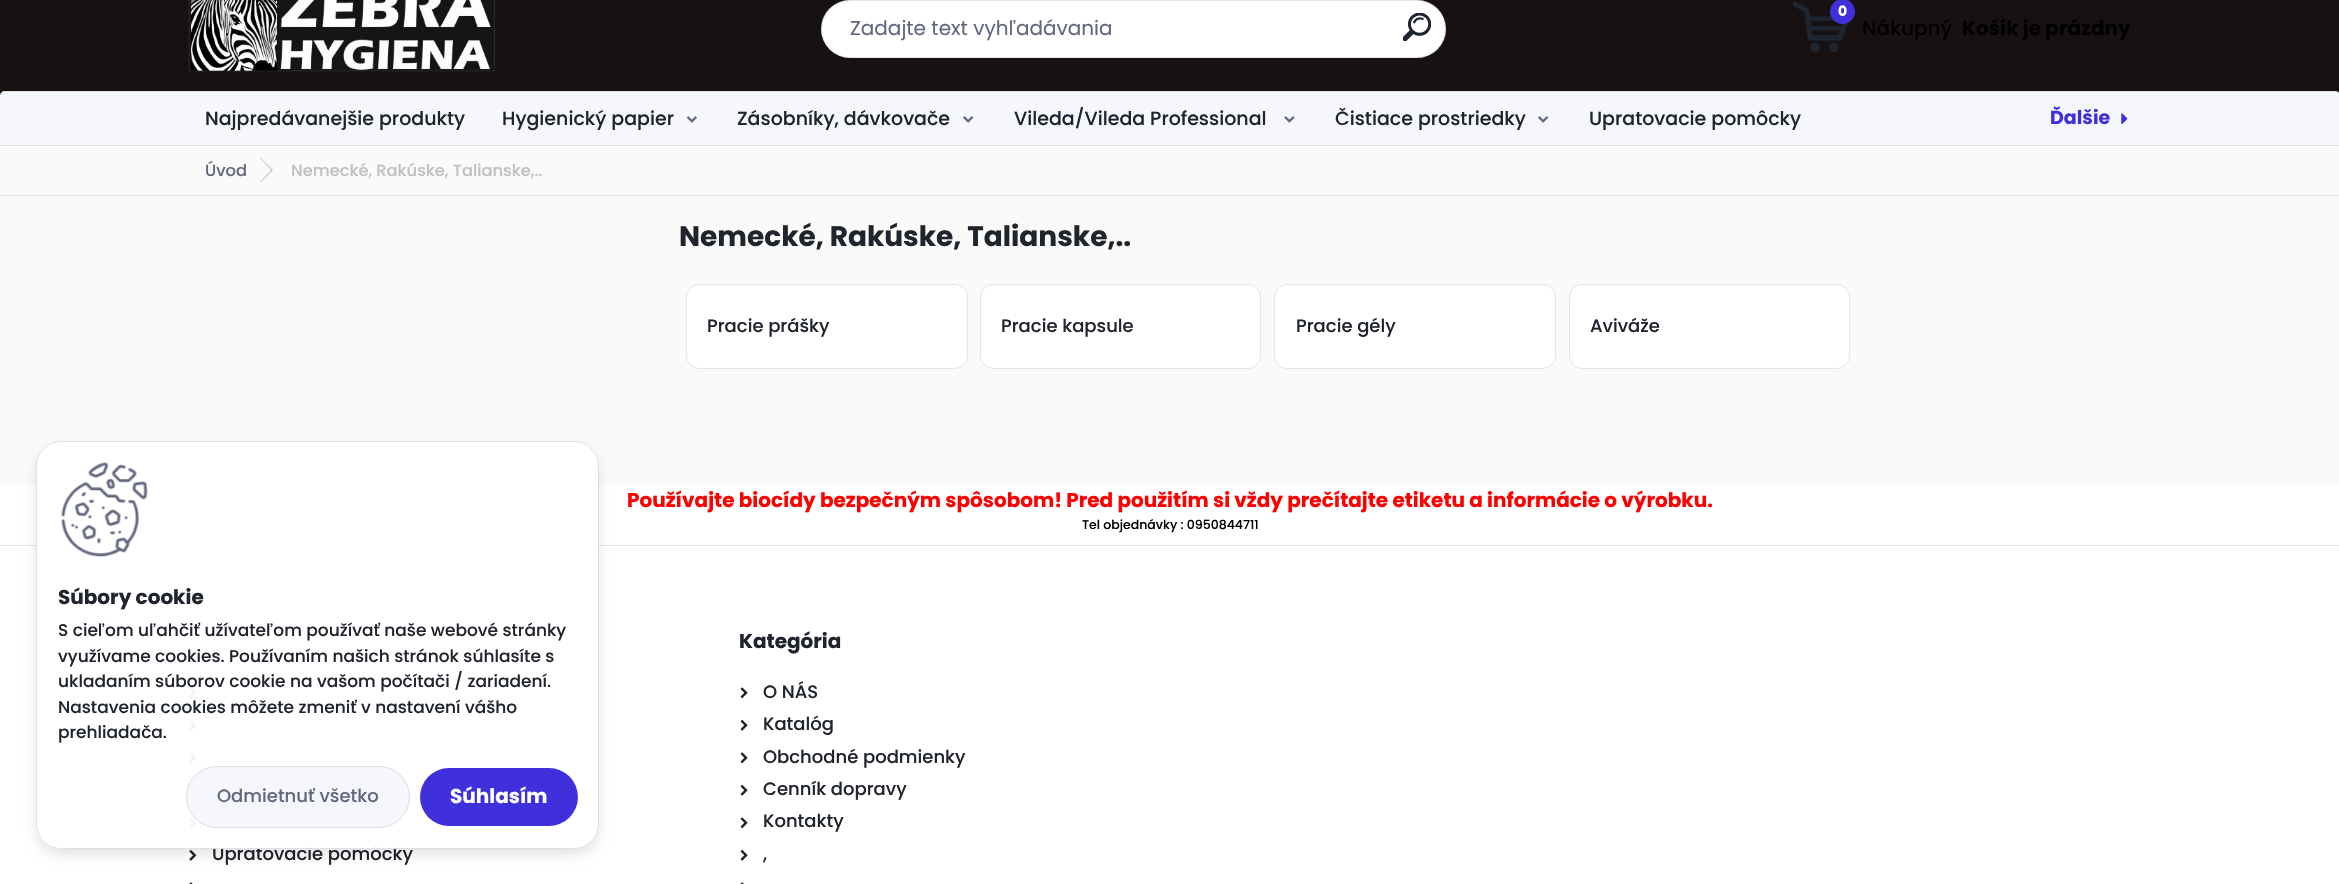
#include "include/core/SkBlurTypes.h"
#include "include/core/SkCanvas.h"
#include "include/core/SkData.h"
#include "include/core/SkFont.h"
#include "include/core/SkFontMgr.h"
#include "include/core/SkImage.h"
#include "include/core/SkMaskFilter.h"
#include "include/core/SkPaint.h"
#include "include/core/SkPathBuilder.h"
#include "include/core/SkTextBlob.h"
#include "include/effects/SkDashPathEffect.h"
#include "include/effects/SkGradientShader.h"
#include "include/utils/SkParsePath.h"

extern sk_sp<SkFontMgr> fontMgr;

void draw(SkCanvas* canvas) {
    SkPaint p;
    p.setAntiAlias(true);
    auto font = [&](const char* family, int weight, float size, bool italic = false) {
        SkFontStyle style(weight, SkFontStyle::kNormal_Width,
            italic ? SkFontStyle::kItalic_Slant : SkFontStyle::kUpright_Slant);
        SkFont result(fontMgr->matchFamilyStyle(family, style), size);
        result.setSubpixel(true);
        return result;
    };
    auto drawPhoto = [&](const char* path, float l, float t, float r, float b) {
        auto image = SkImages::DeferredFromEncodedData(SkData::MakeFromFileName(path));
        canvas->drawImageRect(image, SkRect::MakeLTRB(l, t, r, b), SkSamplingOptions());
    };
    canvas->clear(0xFFFFFFFF);
    p.setColor(0xFF181111);
    canvas->drawRect(SkRect::MakeLTRB(0, 0, 2339, 96), p);
    drawPhoto("media/1.png", 188, 0, 495, 72);
    p.setColor(0xFFFFFFFF);
    canvas->drawRoundRect(SkRect::MakeLTRB(821, 0, 1446, 58), 29, 29, p);
    p.setStyle(SkPaint::kStroke_Style);
    p.setStrokeWidth(1);
    p.setColor(0x1A000000);
    canvas->drawRoundRect(SkRect::MakeLTRB(821.5f, 0.5f, 1445.5f, 57.5f), 28.5f, 28.5f, p);
    auto font1 = font("Poppins", 400, 20);
    p.setStyle(SkPaint::kFill_Style);
    p.setColor(0xFF626780);
    canvas->drawString("Zadajte text vyhľadávania", 850, 35, font1, p);
    drawPhoto("media/2.png", 1403, 13, 1431, 41);
    drawPhoto("media/3.png", 1793, 1, 1848, 53);
    p.setColor(0xFF4030DC);
    canvas->drawCircle(1842.5f, 11.5f, 12.5f, p);
    auto font2 = font("Poppins", 700, 14);
    p.setColor(0xFFFFFFFF);
    canvas->drawString("0", 1838, 16, font2, p);
    auto font3 = font("Poppins", 500, 20);
    p.setColor(0xFF000000);
    canvas->drawString("Nákupný", 1862, 35, font3, p);
    auto font4 = font("Poppins", 700, 20);
    canvas->drawString("Košík je prázdny", 1962, 35, font4, p);
    p.setColor(0xFFF6F7FC);
    canvas->drawPath(SkPathBuilder().moveTo(5, 91).lineTo(2335, 91).cubicTo(2338, 91, 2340, 93, 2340, 96).lineTo(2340, 146).lineTo(0, 146).lineTo(0, 96).cubicTo(0, 93, 2, 91, 5, 91).close().detach(), p);
    p.setColor(0x1A000000);
    canvas->drawRect(SkRect::MakeLTRB(3, 91, 2338, 92), p);
    p.setColor(0xFFDDDEE3);
    canvas->drawRect(SkRect::MakeLTRB(0, 145, 2339, 146), p);
    auto font5 = font("Poppins", 500, 19);
    p.setColor(0xFF1F242D);
    canvas->drawString("Najpredávanejšie produkty", 205, 125, font5, p);
    canvas->drawString("Hygienický papier", 502, 125, font5, p);
    drawPhoto("media/4.png", 686, 116, 697, 123);
    canvas->drawString("Zásobníky, dávkovače", 737, 125, font5, p);
    drawPhoto("media/5.png", 963, 116, 974, 123);
    canvas->drawString("Vileda/Vileda Professional", 1014, 125, font5, p);
    drawPhoto("media/6.png", 1284, 116, 1295, 123);
    canvas->drawString("Čistiace prostriedky", 1335, 125, font5, p);
    drawPhoto("media/5.png", 1538, 116, 1549, 123);
    canvas->drawString("Upratovacie pomôcky", 1589, 125, font5, p);
    auto font6 = font("Poppins", 700, 19);
    p.setColor(0xFF4030DC);
    canvas->drawString("Ďalšie", 2050, 124, font6, p);
    drawPhoto("media/7.png", 2121, 113, 2128, 125);
    p.setColor(0xFFFAFAF9);
    canvas->drawRect(SkRect::MakeLTRB(0, 146, 2339, 485), p);
    p.setColor(0xFFE1E1E0);
    canvas->drawRect(SkRect::MakeLTRB(0, 195, 2339, 196), p);
    auto font7 = font("Poppins", 500, 16.25f);
    p.setColor(0xFF626780);
    canvas->drawString("Úvod", 205, 176, font7, p);
    p.setColor(0xFFC0C0BF);
    canvas->drawPath(SkPathBuilder().moveTo(260, 158).lineTo(261, 158).lineTo(273, 170).lineTo(271.5f, 170).close().moveTo(271.5f, 170).lineTo(273, 170).lineTo(261, 182).lineTo(260, 182).close().detach(), p);
    canvas->drawString("Nemecké, Rakúske, Talianske,..", 291, 176, font7, p);
    auto font8 = font("Poppins", 700, 28);
    p.setColor(0xFF1F242D);
    canvas->drawString("Nemecké, Rakúske, Talianske,..", 679, 246, font8, p);
    p.setColor(0xFFFFFFFF);
    canvas->drawRoundRect(SkRect::MakeLTRB(686, 284, 968, 369), 13, 13, p);
    p.setStyle(SkPaint::kStroke_Style);
    p.setColor(0x1A000000);
    canvas->drawRoundRect(SkRect::MakeLTRB(686.5f, 284.5f, 967.5f, 368.5f), 12.5f, 12.5f, p);
    auto font9 = font("Poppins", 500, 18);
    p.setStyle(SkPaint::kFill_Style);
    p.setColor(0xFF1F242D);
    canvas->drawString("Pracie prášky", 707, 332, font9, p);
    p.setColor(0xFFFFFFFF);
    canvas->drawRoundRect(SkRect::MakeLTRB(980, 284, 1261, 369), 13, 13, p);
    p.setStyle(SkPaint::kStroke_Style);
    p.setColor(0x1A000000);
    canvas->drawRoundRect(SkRect::MakeLTRB(980.5f, 284.5f, 1260.5f, 368.5f), 12.5f, 12.5f, p);
    p.setStyle(SkPaint::kFill_Style);
    p.setColor(0xFF1F242D);
    canvas->drawString("Pracie kapsule", 1001, 332, font9, p);
    p.setColor(0xFFFFFFFF);
    canvas->drawRoundRect(SkRect::MakeLTRB(1274, 284, 1556, 369), 13, 13, p);
    p.setStyle(SkPaint::kStroke_Style);
    p.setColor(0x1A000000);
    canvas->drawRoundRect(SkRect::MakeLTRB(1274.5f, 284.5f, 1555.5f, 368.5f), 12.5f, 12.5f, p);
    p.setStyle(SkPaint::kFill_Style);
    p.setColor(0xFF1F242D);
    canvas->drawString("Pracie gély", 1296, 332, font9, p);
    p.setColor(0xFFFFFFFF);
    canvas->drawRoundRect(SkRect::MakeLTRB(1569, 284, 1850, 369), 13, 13, p);
    p.setStyle(SkPaint::kStroke_Style);
    p.setColor(0x1A000000);
    canvas->drawRoundRect(SkRect::MakeLTRB(1569.5f, 284.5f, 1849.5f, 368.5f), 12.5f, 12.5f, p);
    p.setStyle(SkPaint::kFill_Style);
    p.setColor(0xFF1F242D);
    canvas->drawString("Aviváže", 1590, 332, font9, p);
    p.setColor(0xFFFF0000);
    canvas->drawString("Používajte biocídy bezpečným spôsobom! Pred použitím si vždy prečítajte etiketu a informácie o výrobku.", 627, 507, font4, p);
    auto font10 = font("Poppins", 500, 12.5f);
    p.setColor(0xFF000000);
    canvas->drawString("Tel objednávky : 0950844711", 1082, 529, font10, p);
    p.setColor(0xFFE6E6E6);
    canvas->drawRect(SkRect::MakeLTRB(0, 545, 2339, 546), p);
    drawPhoto("media/8.png", 189, 687, 197, 699);
    drawPhoto("media/9.png", 189, 719, 197, 731);
    drawPhoto("media/8.png", 189, 752, 197, 764);
    drawPhoto("media/8.png", 189, 817, 197, 829);
    drawPhoto("media/9.png", 189, 849, 197, 861);
    p.setColor(0xFF1F242D);
    canvas->drawString("Upratovacie pomôcky", 212, 860, font9, p);
    drawPhoto("media/10.png", 189, 882, 193, 884);
    canvas->drawString("Kategória", 739, 648, font4, p);
    drawPhoto("media/11.png", 740, 687, 748, 699);
    canvas->drawString("O NÁS", 763, 698, font9, p);
    drawPhoto("media/12.png", 740, 719, 748, 731);
    canvas->drawString("Katalóg", 763, 730, font9, p);
    drawPhoto("media/11.png", 740, 752, 748, 764);
    canvas->drawString("Obchodné podmienky", 763, 763, font9, p);
    drawPhoto("media/12.png", 740, 784, 748, 796);
    canvas->drawString("Cenník dopravy", 763, 795, font9, p);
    drawPhoto("media/11.png", 740, 817, 748, 829);
    canvas->drawString("Kontakty", 763, 827, font9, p);
    drawPhoto("media/12.png", 740, 849, 748, 861);
    canvas->drawString(",", 763, 860, font9, p);
    drawPhoto("media/13.png", 740, 882, 744, 884);
    canvas->save();
    canvas->clipPath(SkPathBuilder(SkPathFillType::kEvenOdd).moveTo(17, 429).lineTo(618, 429).lineTo(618, 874).lineTo(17, 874).close().moveTo(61, 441).lineTo(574, 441).cubicTo(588, 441, 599, 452, 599, 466).lineTo(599, 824).cubicTo(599, 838, 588, 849, 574, 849).lineTo(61, 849).cubicTo(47, 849, 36, 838, 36, 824).lineTo(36, 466).cubicTo(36, 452, 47, 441, 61, 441).close().detach(), true);
    p.setColor(0x1A000000);
    p.setMaskFilter(SkMaskFilter::MakeBlur(kNormal_SkBlurStyle, 6));
    canvas->drawRoundRect(SkRect::MakeLTRB(36, 448, 599, 855), 25, 25, p);
    p.setMaskFilter(nullptr);
    canvas->restore();
    p.setColor(0xF2FFFFFF);
    canvas->drawRoundRect(SkRect::MakeLTRB(36.5f, 441.5f, 598.5f, 848.5f), 24.5f, 24.5f, p);
    p.setStyle(SkPaint::kStroke_Style);
    p.setColor(0xFFE0E0E0);
    canvas->drawRoundRect(SkRect::MakeLTRB(36.5f, 441.5f, 598.5f, 848.5f), 24.5f, 24.5f, p);
    drawPhoto("media/14.png", 61, 462, 148, 557);
    p.setStyle(SkPaint::kFill_Style);
    p.setColor(0xFF1F242D);
    canvas->drawString("Súbory cookie", 58, 604, font4, p);
    auto font11 = font("Poppins", 500, 17);
    {
        const struct { const char* s; float x, y; } items[] = {
            {"S cieľom uľahčiť užívateľom používať naše webové stránky", 58, 636},
            {"využívame cookies. Používaním našich stránok súhlasíte s", 58, 662},
            {"ukladaním súborov cookie na vašom počítači / zariadení.", 58, 687},
            {"Nastavenia cookies môžete zmeniť v nastavení vášho", 58, 713},
            {"prehliadača.", 58, 738},
        };
        for (auto [s, x, y] : items) {
            canvas->drawString(s, x, y, font11, p);
        }
    }
    p.setColor(0xFFF6F7FC);
    canvas->drawRoundRect(SkRect::MakeLTRB(186, 766, 410, 828), 31, 31, p);
    p.setStyle(SkPaint::kStroke_Style);
    p.setColor(0x1A000000);
    canvas->drawRoundRect(SkRect::MakeLTRB(186.5f, 766.5f, 409.5f, 827.5f), 30.5f, 30.5f, p);
    p.setStyle(SkPaint::kFill_Style);
    p.setColor(0xFF626780);
    canvas->drawString("Odmietnuť všetko", 217, 802, font9, p);
    p.setColor(0xFF4030DC);
    canvas->drawRoundRect(SkRect::MakeLTRB(420, 768, 578, 826), 29, 29, p);
    p.setColor(0xFFFFFFFF);
    canvas->drawString("Súhlasím", 450, 803, font4, p);
}
